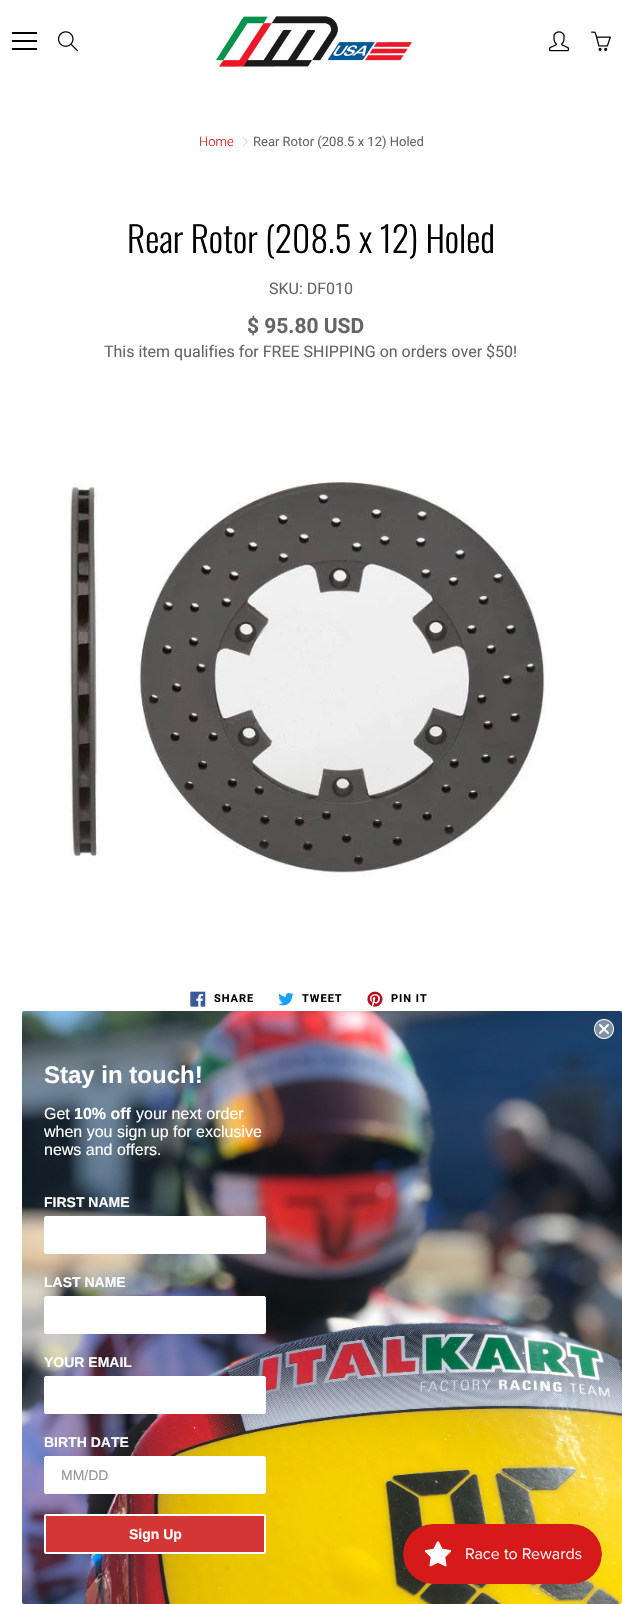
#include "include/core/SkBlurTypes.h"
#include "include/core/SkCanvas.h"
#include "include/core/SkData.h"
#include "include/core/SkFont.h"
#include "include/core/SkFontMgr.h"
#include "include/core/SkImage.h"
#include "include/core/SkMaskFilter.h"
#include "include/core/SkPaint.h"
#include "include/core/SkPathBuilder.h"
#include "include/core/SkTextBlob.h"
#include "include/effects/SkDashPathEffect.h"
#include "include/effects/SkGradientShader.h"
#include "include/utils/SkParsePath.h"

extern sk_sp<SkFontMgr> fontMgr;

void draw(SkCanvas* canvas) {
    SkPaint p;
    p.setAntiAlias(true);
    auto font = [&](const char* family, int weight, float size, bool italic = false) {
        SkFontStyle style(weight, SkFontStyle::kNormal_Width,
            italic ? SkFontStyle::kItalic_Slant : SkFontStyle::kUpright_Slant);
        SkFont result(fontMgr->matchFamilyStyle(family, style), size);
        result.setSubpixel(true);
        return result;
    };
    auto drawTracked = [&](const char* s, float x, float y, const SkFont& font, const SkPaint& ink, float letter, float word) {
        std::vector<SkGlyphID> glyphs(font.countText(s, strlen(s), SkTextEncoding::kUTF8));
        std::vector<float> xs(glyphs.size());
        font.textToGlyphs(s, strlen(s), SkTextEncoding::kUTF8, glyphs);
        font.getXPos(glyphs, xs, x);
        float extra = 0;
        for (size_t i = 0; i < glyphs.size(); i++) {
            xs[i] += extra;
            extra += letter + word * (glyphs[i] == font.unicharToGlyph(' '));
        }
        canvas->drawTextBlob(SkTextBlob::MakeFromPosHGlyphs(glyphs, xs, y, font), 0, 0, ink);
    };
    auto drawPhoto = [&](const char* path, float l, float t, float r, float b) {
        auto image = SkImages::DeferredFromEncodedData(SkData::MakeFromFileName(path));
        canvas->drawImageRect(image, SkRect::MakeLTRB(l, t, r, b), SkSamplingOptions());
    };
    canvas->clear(0xFFFFFFFF);
    {
        const struct { float l, t, r, b; SkColor color; } items[] = {
            {12, 40, 37, 42, 0xFF000000},
            {12, 32, 37, 34, 0xFF000000},
            {12, 48, 37, 50, 0xFF000000},
        };
        for (auto [l, t, r, b, color] : items) {
            p.setColor(color);
            canvas->drawRect(SkRect::MakeLTRB(l, t, r, b), p);
        }
    }
    drawPhoto("media/1.png", 58, 31, 78, 52);
    drawPhoto("media/2.png", 216, 16, 412, 67);
    drawPhoto("media/3.png", 549, 31, 569, 52);
    drawPhoto("media/4.png", 591, 31, 611, 51);
    auto font1 = font("Roboto", 300, 13);
    p.setColor(0xFFE70D0D);
    canvas->drawString("Home", 199, 146, font1, p);
    drawPhoto("media/5.png", 242, 136, 248, 147);
    auto font2 = font("Roboto", 400, 13);
    p.setColor(0xFF666565);
    canvas->drawString("Rear Rotor (208.5 x 12) Holed", 253, 146, font2, p);
    auto font3 = font("Oswald", 300, 35.5f);
    p.setColor(0xFF000000);
    canvas->drawString("Rear Rotor (208.5 x 12) Holed", 127, 253, font3, p);
    auto font4 = font("Roboto", 400, 16);
    p.setColor(0xFF666565);
    canvas->drawString("SKU: DF010", 269, 294, font4, p);
    auto font5 = font("Roboto", 700, 21);
    canvas->drawString("$ 95.80 USD", 247, 333, font5, p);
    canvas->drawString("This item qualifies for FREE SHIPPING on orders over $50!", 104, 357, font4, p);
    drawPhoto("media/6.png", 69, 480, 546, 877);
    drawPhoto("media/7.png", 190, 991, 206, 1007);
    auto font6 = font("Roboto", 700, 11);
    p.setColor(0xFF000000);
    drawTracked("SHARE", 214, 1002, font6, p, 1, 0);
    drawPhoto("media/8.png", 278, 992, 294, 1006);
    drawTracked("TWEET", 302, 1002, font6, p, 1, 0);
    drawPhoto("media/9.png", 367, 991, 383, 1007);
    drawTracked("PIN IT", 391, 1002, font6, p, 1, 0);
    drawPhoto("media/11.png", 22, 1011, 622, 1604);
    drawPhoto("media/10.png", 594, 1019, 614, 1039);
    auto font7 = font("Liberation Sans", 700, 24);
    p.setColor(0xFFFFFFFF);
    canvas->drawString("Stay in touch!", 44, 1083, font7, p);
    auto font8 = font("Liberation Sans", 400, 16);
    canvas->drawString("Get", 44, 1119, font8, p);
    auto font9 = font("Liberation Sans", 700, 16);
    canvas->drawString("10% off", 74, 1119, font9, p);
    {
        const struct { const char* s; float x, y; } items[] = {
            {"your next order", 136, 1119},
            {"when you sign up for exclusive", 44, 1137},
            {"news and offers.", 44, 1155},
        };
        for (auto [s, x, y] : items) {
            canvas->drawString(s, x, y, font8, p);
        }
    }
    auto font10 = font("Liberation Sans", 700, 14);
    canvas->drawString("FIRST NAME", 44, 1207, font10, p);
    canvas->drawRoundRect(SkRect::MakeLTRB(44.5f, 1216.5f, 265.5f, 1253.5f), 1.5f, 1.5f, p);
    p.setStyle(SkPaint::kStroke_Style);
    p.setStrokeWidth(1);
    canvas->drawRoundRect(SkRect::MakeLTRB(44.5f, 1216.5f, 265.5f, 1253.5f), 1.5f, 1.5f, p);
    p.setStyle(SkPaint::kFill_Style);
    canvas->drawString("LAST NAME", 44, 1287, font10, p);
    canvas->drawRoundRect(SkRect::MakeLTRB(44.5f, 1296.5f, 265.5f, 1333.5f), 1.5f, 1.5f, p);
    p.setStyle(SkPaint::kStroke_Style);
    canvas->drawRoundRect(SkRect::MakeLTRB(44.5f, 1296.5f, 265.5f, 1333.5f), 1.5f, 1.5f, p);
    p.setStyle(SkPaint::kFill_Style);
    canvas->drawString("YOUR EMAIL", 44, 1367, font10, p);
    canvas->drawRoundRect(SkRect::MakeLTRB(44.5f, 1376.5f, 265.5f, 1413.5f), 1.5f, 1.5f, p);
    p.setStyle(SkPaint::kStroke_Style);
    canvas->drawRoundRect(SkRect::MakeLTRB(44.5f, 1376.5f, 265.5f, 1413.5f), 1.5f, 1.5f, p);
    p.setStyle(SkPaint::kFill_Style);
    canvas->drawString("BIRTH DATE", 44, 1447, font10, p);
    canvas->drawRoundRect(SkRect::MakeLTRB(44.5f, 1456.5f, 265.5f, 1493.5f), 1.5f, 1.5f, p);
    p.setStyle(SkPaint::kStroke_Style);
    canvas->drawRoundRect(SkRect::MakeLTRB(44.5f, 1456.5f, 265.5f, 1493.5f), 1.5f, 1.5f, p);
    auto font11 = font("Liberation Sans", 400, 14);
    p.setStyle(SkPaint::kFill_Style);
    p.setColor(0xFF949596);
    canvas->drawString("MM/DD", 61, 1480, font11, p);
    p.setColor(0xFFD43535);
    canvas->drawRoundRect(SkRect::MakeLTRB(45, 1515, 265, 1553), 1, 1, p);
    p.setStyle(SkPaint::kStroke_Style);
    p.setStrokeWidth(2);
    p.setColor(0xFFFFFFFF);
    canvas->drawRoundRect(SkRect::MakeLTRB(45, 1515, 265, 1553), 1, 1, p);
    p.setStyle(SkPaint::kFill_Style);
    canvas->drawString("Sign Up", 129, 1539, font10, p);
    p.setColor(0x0D000000);
    p.setMaskFilter(SkMaskFilter::MakeBlur(kNormal_SkBlurStyle, 12.5f));
    canvas->drawRoundRect(SkRect::MakeLTRB(403, 1524, 602, 1584), 30, 30, p);
    p.setMaskFilter(nullptr);
    drawPhoto("media/12.png", 403, 1524, 602, 1584);
}
